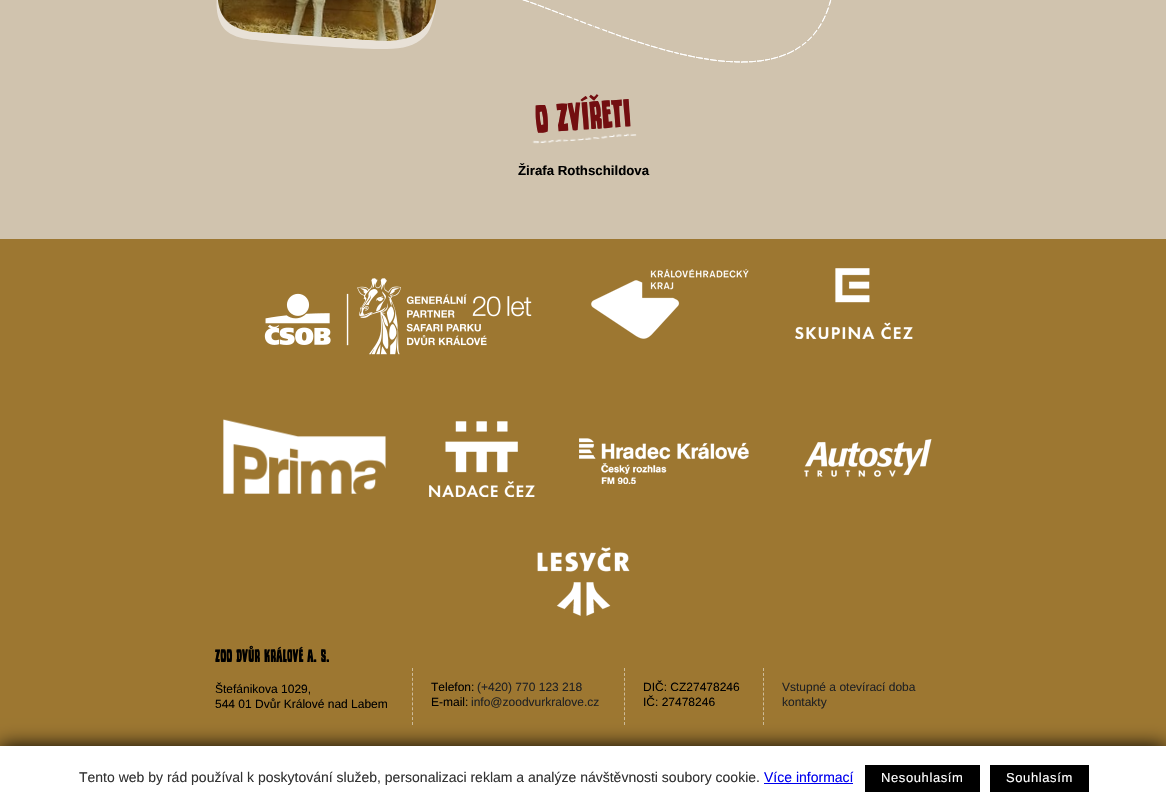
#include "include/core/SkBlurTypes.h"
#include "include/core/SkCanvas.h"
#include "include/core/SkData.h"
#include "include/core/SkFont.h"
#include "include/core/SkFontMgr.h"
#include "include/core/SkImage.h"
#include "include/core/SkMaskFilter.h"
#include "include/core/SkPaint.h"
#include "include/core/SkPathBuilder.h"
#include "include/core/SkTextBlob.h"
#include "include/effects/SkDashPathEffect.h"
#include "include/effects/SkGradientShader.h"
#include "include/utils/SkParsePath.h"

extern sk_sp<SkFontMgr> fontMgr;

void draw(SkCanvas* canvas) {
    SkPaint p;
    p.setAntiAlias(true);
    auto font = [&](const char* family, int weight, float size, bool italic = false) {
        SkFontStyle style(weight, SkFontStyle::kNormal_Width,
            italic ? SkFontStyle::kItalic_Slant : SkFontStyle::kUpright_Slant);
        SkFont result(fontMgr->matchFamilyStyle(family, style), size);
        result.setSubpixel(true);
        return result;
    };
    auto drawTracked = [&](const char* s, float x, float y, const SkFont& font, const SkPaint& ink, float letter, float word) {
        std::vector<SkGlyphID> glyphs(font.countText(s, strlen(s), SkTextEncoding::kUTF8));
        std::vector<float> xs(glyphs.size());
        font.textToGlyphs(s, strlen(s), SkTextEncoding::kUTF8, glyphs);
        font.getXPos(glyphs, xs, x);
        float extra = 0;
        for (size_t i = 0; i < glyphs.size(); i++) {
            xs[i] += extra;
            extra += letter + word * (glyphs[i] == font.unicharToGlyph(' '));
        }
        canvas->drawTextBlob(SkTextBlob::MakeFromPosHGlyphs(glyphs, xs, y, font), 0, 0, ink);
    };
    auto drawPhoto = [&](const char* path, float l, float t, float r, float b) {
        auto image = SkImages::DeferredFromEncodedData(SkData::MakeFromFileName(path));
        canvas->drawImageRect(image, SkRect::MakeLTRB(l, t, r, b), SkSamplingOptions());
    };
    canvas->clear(0xFFD0C3AE);
    drawPhoto("media/1.png", 522, 0, 832, 63);
    drawPhoto("media/2.png", 216, 0, 437, 49);
    drawPhoto("media/3.png", 532, 133, 637, 144);
    auto font1 = font("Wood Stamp", 400, 42);
    p.setColor(0xFF730E10);
    canvas->save();
    canvas->rotate(-4, 536, 133);
    canvas->drawString("O zvířeti", 536, 133, font1, p);
    canvas->restore();
    auto font2 = font("Liberation Sans", 700, 13.25f);
    p.setColor(0xFF000000);
    canvas->drawString("Žirafa Rothschildova", 518, 175, font2, p);
    p.setColor(0xFF9D7731);
    canvas->drawRect(SkRect::MakeLTRB(0, 239, 1166, 746), p);
    drawPhoto("media/4.png", 264, 278, 532, 355);
    drawPhoto("media/5.png", 591, 269, 749, 339);
    drawPhoto("media/6.png", 795, 268, 913, 339);
    drawPhoto("media/7.png", 223, 419, 386, 494);
    drawPhoto("media/8.png", 429, 421, 535, 497);
    drawPhoto("media/9.png", 579, 438, 749, 484);
    drawPhoto("media/10.png", 804, 439, 932, 477);
    drawPhoto("media/11.png", 537, 547, 630, 616);
    auto font3 = font("Wood Stamp", 400, 19.25f);
    p.setColor(0xFF000000);
    canvas->drawString("ZOO Dvůr Králové a. s.", 215, 662, font3, p);
    auto font4 = font("Liberation Sans", 400, 12);
    canvas->drawString("Štefánikova 1029,", 215, 693, font4, p);
    canvas->drawString("544 01 Dvůr Králové nad Labem", 215, 708, font4, p);
    p.setStyle(SkPaint::kStroke_Style);
    p.setStrokeWidth(1);
    p.setColor(0xFFCEBC99);
    p.setPathEffect(SkDashPathEffect::Make({{3, 1.91f}}, 0));
    canvas->drawPath(SkPathBuilder().moveTo(412.5f, 668).lineTo(412.5f, 725).detach(), p);
    p.setPathEffect(nullptr);
    p.setStyle(SkPaint::kFill_Style);
    p.setColor(0xFF000000);
    canvas->drawString("Telefon:", 431, 691, font4, p);
    p.setColor(0xFF222222);
    canvas->drawString("(+420) 770 123 218", 477, 691, font4, p);
    p.setColor(0xFF000000);
    canvas->drawString("E-mail:", 431, 706, font4, p);
    p.setColor(0xFF222222);
    canvas->drawString("info@zoodvurkralove.cz", 471, 706, font4, p);
    p.setStyle(SkPaint::kStroke_Style);
    p.setColor(0xFFCEBC99);
    p.setPathEffect(SkDashPathEffect::Make({{3, 1.91f}}, 0));
    canvas->drawPath(SkPathBuilder().moveTo(624.5f, 668).lineTo(624.5f, 725).detach(), p);
    p.setPathEffect(nullptr);
    p.setStyle(SkPaint::kFill_Style);
    p.setColor(0xFF000000);
    canvas->drawString("DIČ: CZ27478246", 643, 691, font4, p);
    canvas->drawString("IČ: 27478246", 643, 706, font4, p);
    p.setStyle(SkPaint::kStroke_Style);
    p.setColor(0xFFCEBC99);
    p.setPathEffect(SkDashPathEffect::Make({{3, 1.91f}}, 0));
    canvas->drawPath(SkPathBuilder().moveTo(763.5f, 668).lineTo(763.5f, 725).detach(), p);
    p.setPathEffect(nullptr);
    p.setStyle(SkPaint::kFill_Style);
    p.setColor(0xFF222222);
    canvas->drawString("Vstupné a otevírací doba", 782, 691, font4, p);
    canvas->drawString("kontakty", 782, 706, font4, p);
    p.setColor(0xFF000000);
    p.setMaskFilter(SkMaskFilter::MakeBlur(kNormal_SkBlurStyle, 9.5f));
    canvas->drawRect(SkRect::MakeLTRB(0, 746, 1166, 808), p);
    p.setMaskFilter(nullptr);
    p.setColor(0xFFFFFFFF);
    canvas->drawRect(SkRect::MakeLTRB(0, 746, 1166, 808), p);
    auto font5 = font("Liberation Sans", 400, 14);
    p.setColor(0xFF323232);
    canvas->drawString("Tento web by rád používal k poskytování služeb, personalizaci reklam a analýze návštěvnosti soubory cookie.", 79, 782, font5, p);
    p.setColor(0xFF0000EE);
    canvas->drawString("Více informací", 764, 782, font5, p);
    canvas->drawRect(SkRect::MakeLTRB(764, 783, 853, 784), p);
    p.setColor(0xFF000000);
    canvas->drawRect(SkRect::MakeLTRB(865, 765, 980, 792), p);
    auto font6 = font("Liberation Sans", 400, 13);
    p.setColor(0xFFFFFFFF);
    drawTracked("Nesouhlasím", 881, 782, font6, p, 0.6f, 0);
    p.setColor(0xFF000000);
    canvas->drawRect(SkRect::MakeLTRB(990, 765, 1089, 792), p);
    p.setColor(0xFFFFFFFF);
    drawTracked("Souhlasím", 1006, 782, font6, p, 0.6f, 0);
}
